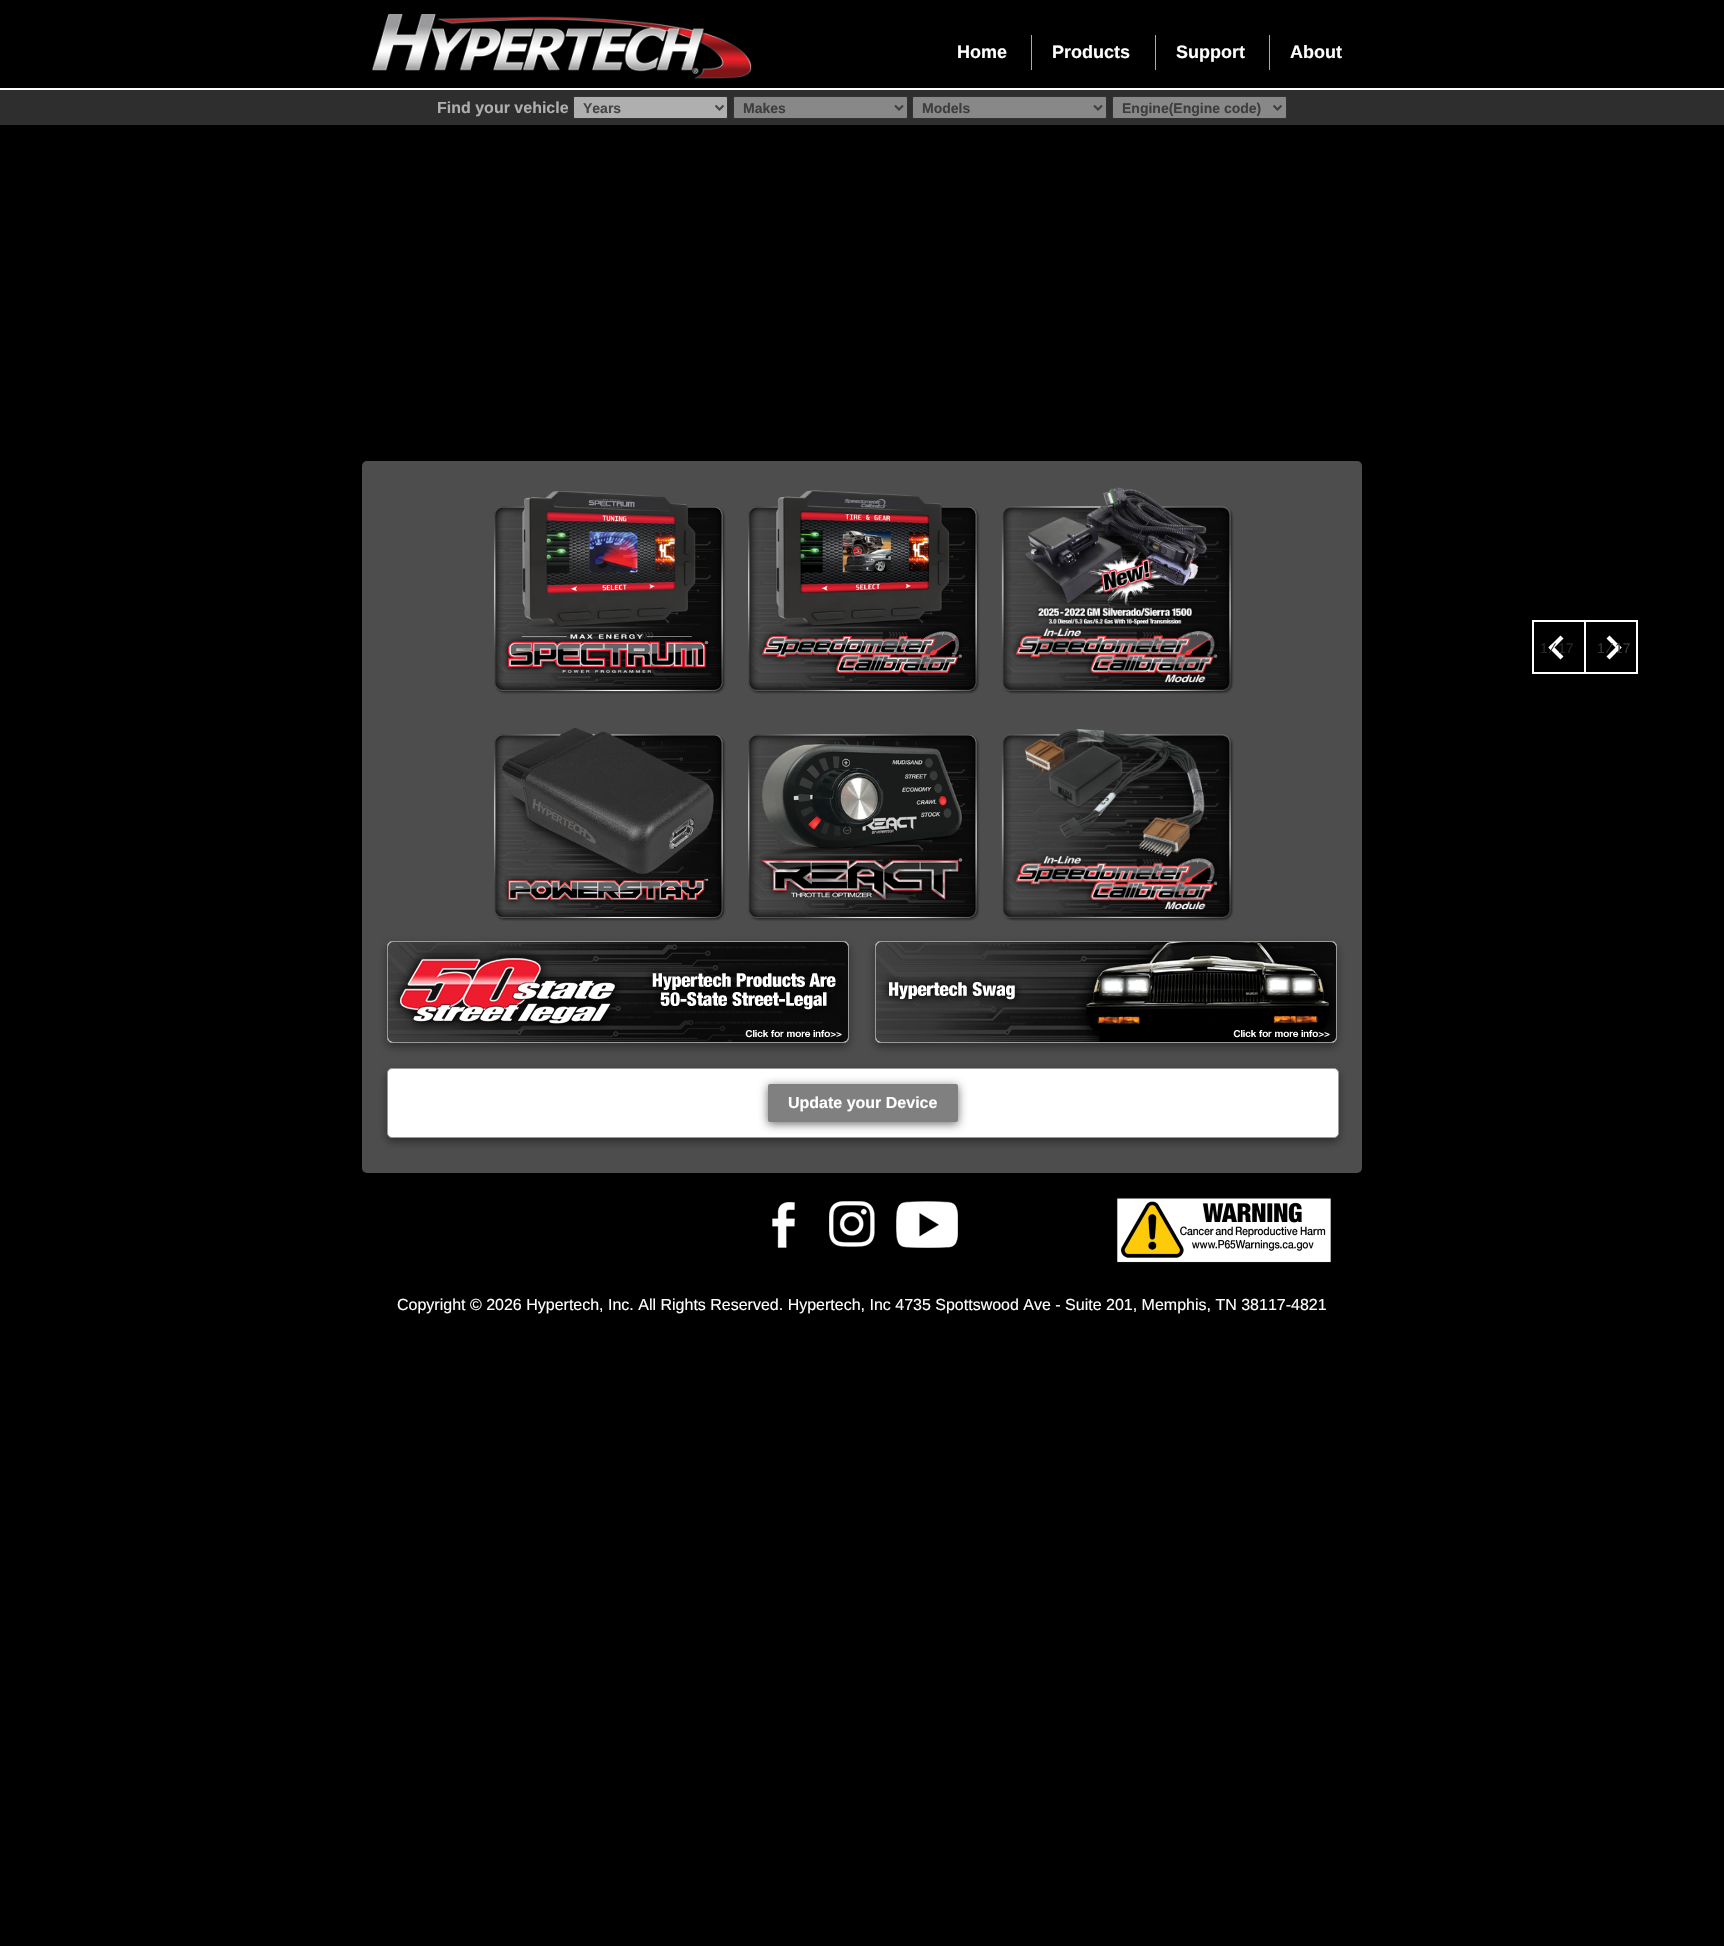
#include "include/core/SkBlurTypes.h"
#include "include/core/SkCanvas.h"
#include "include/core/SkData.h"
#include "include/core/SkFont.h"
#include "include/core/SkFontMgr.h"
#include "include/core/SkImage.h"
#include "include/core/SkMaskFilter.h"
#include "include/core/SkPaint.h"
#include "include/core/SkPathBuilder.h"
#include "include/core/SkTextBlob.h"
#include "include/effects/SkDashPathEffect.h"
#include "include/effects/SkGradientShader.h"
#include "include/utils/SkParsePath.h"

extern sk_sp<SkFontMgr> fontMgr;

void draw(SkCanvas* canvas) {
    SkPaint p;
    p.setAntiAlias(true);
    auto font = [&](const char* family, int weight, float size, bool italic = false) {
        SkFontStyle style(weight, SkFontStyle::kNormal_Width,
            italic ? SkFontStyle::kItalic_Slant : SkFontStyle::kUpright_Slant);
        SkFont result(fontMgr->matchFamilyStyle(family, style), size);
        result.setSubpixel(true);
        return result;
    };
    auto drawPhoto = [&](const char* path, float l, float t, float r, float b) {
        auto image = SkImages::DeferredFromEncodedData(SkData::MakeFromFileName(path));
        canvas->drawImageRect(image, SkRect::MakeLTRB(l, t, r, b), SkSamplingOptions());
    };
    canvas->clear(0xFF000000);
    drawPhoto("media/1.png", 372, 13, 752, 79);
    auto font1 = font("Liberation Sans", 700, 18);
    p.setColor(0xFFFFFFFF);
    canvas->drawString("Home", 957, 58, font1, p);
    p.setColor(0xFFAAAAAA);
    canvas->drawRect(SkRect::MakeLTRB(1031, 35, 1032, 70), p);
    p.setColor(0xFFFFFFFF);
    canvas->drawString("Products", 1052, 58, font1, p);
    p.setColor(0xFFAAAAAA);
    canvas->drawRect(SkRect::MakeLTRB(1155, 35, 1156, 70), p);
    p.setColor(0xFFFFFFFF);
    canvas->drawString("Support", 1176, 58, font1, p);
    p.setColor(0xFFAAAAAA);
    canvas->drawRect(SkRect::MakeLTRB(1269, 35, 1270, 70), p);
    p.setColor(0xFFFFFFFF);
    canvas->drawString("About", 1290, 58, font1, p);
    canvas->drawRect(SkRect::MakeLTRB(0, 88, 1724, 90), p);
    p.setColor(0xFF2E2E2E);
    canvas->drawRect(SkRect::MakeLTRB(0, 90, 1724, 125), p);
    auto font2 = font("Liberation Sans", 700, 16);
    p.setColor(0xFFAFAFAF);
    canvas->drawString("Find your vehicle", 437, 113, font2, p);
    canvas->drawRoundRect(SkRect::MakeLTRB(573.5f, 96.5f, 727.5f, 118.5f), 1.5f, 1.5f, p);
    p.setStyle(SkPaint::kStroke_Style);
    p.setStrokeWidth(1);
    p.setColor(0xFF333333);
    canvas->drawRoundRect(SkRect::MakeLTRB(573.5f, 96.5f, 727.5f, 118.5f), 1.5f, 1.5f, p);
    p.setStrokeWidth(2);
    p.setColor(0xFF444444);
    canvas->drawPath(SkPathBuilder().moveTo(715.5f, 105.5f).lineTo(719.5f, 109.5f).lineTo(723.5f, 105.5f).detach(), p);
    auto font3 = font("Liberation Sans", 700, 14);
    p.setStyle(SkPaint::kFill_Style);
    canvas->drawString("Years", 583, 113, font3, p);
    p.setColor(0xFF888888);
    canvas->drawRoundRect(SkRect::MakeLTRB(733.5f, 96.5f, 907.5f, 118.5f), 1.5f, 1.5f, p);
    p.setStyle(SkPaint::kStroke_Style);
    p.setStrokeWidth(1);
    p.setColor(0xFF323232);
    canvas->drawRoundRect(SkRect::MakeLTRB(733.5f, 96.5f, 907.5f, 118.5f), 1.5f, 1.5f, p);
    p.setStrokeWidth(2);
    p.setColor(0xFF3D3D3D);
    canvas->drawPath(SkPathBuilder().moveTo(895, 105.5f).lineTo(899, 109.5f).lineTo(903, 105.5f).detach(), p);
    p.setStyle(SkPaint::kFill_Style);
    canvas->drawString("Makes", 743, 113, font3, p);
    p.setColor(0xFF888888);
    canvas->drawRoundRect(SkRect::MakeLTRB(912.5f, 96.5f, 1106.5f, 118.5f), 1.5f, 1.5f, p);
    p.setStyle(SkPaint::kStroke_Style);
    p.setStrokeWidth(1);
    p.setColor(0xFF323232);
    canvas->drawRoundRect(SkRect::MakeLTRB(912.5f, 96.5f, 1106.5f, 118.5f), 1.5f, 1.5f, p);
    p.setStrokeWidth(2);
    p.setColor(0xFF3D3D3D);
    canvas->drawPath(SkPathBuilder().moveTo(1094, 105.5f).lineTo(1098, 109.5f).lineTo(1102, 105.5f).detach(), p);
    p.setStyle(SkPaint::kFill_Style);
    canvas->drawString("Models", 922, 113, font3, p);
    p.setColor(0xFF888888);
    canvas->drawRoundRect(SkRect::MakeLTRB(1112.5f, 96.5f, 1286.5f, 118.5f), 1.5f, 1.5f, p);
    p.setStyle(SkPaint::kStroke_Style);
    p.setStrokeWidth(1);
    p.setColor(0xFF323232);
    canvas->drawRoundRect(SkRect::MakeLTRB(1112.5f, 96.5f, 1286.5f, 118.5f), 1.5f, 1.5f, p);
    p.setStrokeWidth(2);
    p.setColor(0xFF3D3D3D);
    canvas->drawPath(SkPathBuilder().moveTo(1273.5f, 105.5f).lineTo(1277.5f, 109.5f).lineTo(1281.5f, 105.5f).detach(), p);
    p.setStyle(SkPaint::kFill_Style);
    canvas->drawString("Engine(Engine code)", 1122, 113, font3, p);
    p.setStyle(SkPaint::kStroke_Style);
    p.setColor(0xFFFFFFFF);
    canvas->drawRect(SkRect::MakeLTRB(1533, 621, 1585, 673), p);
    p.setStyle(SkPaint::kFill_Style);
    canvas->drawPath(SkPathBuilder().moveTo(1548.5f, 647.5f).lineTo(1560.5f, 635.5f).lineTo(1563.5f, 638.5f).lineTo(1551.5f, 650.5f).close().detach(), p);
    canvas->drawPath(SkPathBuilder().moveTo(1548.5f, 647.5f).lineTo(1551.5f, 644.5f).lineTo(1563.5f, 656.5f).lineTo(1560.5f, 659.5f).close().detach(), p);
    auto font4 = font("Liberation Sans", 400, 14);
    p.setColor(0xFF262626);
    canvas->drawString("1 ∕ 17", 1540, 653, font4, p);
    p.setStyle(SkPaint::kStroke_Style);
    p.setColor(0xFFFFFFFF);
    canvas->drawRect(SkRect::MakeLTRB(1585, 621, 1637, 673), p);
    p.setStyle(SkPaint::kFill_Style);
    canvas->drawPath(SkPathBuilder().moveTo(1621.5f, 647.5f).lineTo(1609.5f, 659.5f).lineTo(1606.5f, 656.5f).lineTo(1618.5f, 644.5f).close().detach(), p);
    canvas->drawPath(SkPathBuilder().moveTo(1621.5f, 647.5f).lineTo(1618.5f, 650.5f).lineTo(1606.5f, 638.5f).lineTo(1609.5f, 635.5f).close().detach(), p);
    p.setColor(0xFF353535);
    canvas->drawString("1 ∕ 17", 1597, 653, font4, p);
    p.setColor(0xFF4D4D4D);
    canvas->drawRoundRect(SkRect::MakeLTRB(362, 461, 1362, 1173), 5, 5, p);
    drawPhoto("media/2.png", 494, 491, 726, 694);
    drawPhoto("media/3.png", 748, 490, 980, 694);
    drawPhoto("media/4.png", 1001, 487, 1234, 694);
    drawPhoto("media/5.png", 494, 728, 726, 921);
    drawPhoto("media/6.png", 748, 734, 980, 921);
    drawPhoto("media/7.png", 1001, 729, 1234, 921);
    p.setColor(0x66000000);
    p.setMaskFilter(SkMaskFilter::MakeBlur(kNormal_SkBlurStyle, 4));
    canvas->drawRoundRect(SkRect::MakeLTRB(387, 945, 849, 1047), 5, 5, p);
    p.setMaskFilter(nullptr);
    p.setColor(0xFFFFFFFF);
    canvas->drawRoundRect(SkRect::MakeLTRB(387.5f, 941.5f, 848.5f, 1042.5f), 4.5f, 4.5f, p);
    p.setStyle(SkPaint::kStroke_Style);
    p.setStrokeWidth(1);
    p.setColor(0xFF999999);
    canvas->drawRoundRect(SkRect::MakeLTRB(387.5f, 941.5f, 848.5f, 1042.5f), 4.5f, 4.5f, p);
    drawPhoto("media/8.png", 388, 942, 848, 1042);
    p.setStyle(SkPaint::kFill_Style);
    p.setColor(0x66000000);
    p.setMaskFilter(SkMaskFilter::MakeBlur(kNormal_SkBlurStyle, 4));
    canvas->drawRoundRect(SkRect::MakeLTRB(875, 945, 1337, 1047), 5, 5, p);
    p.setMaskFilter(nullptr);
    p.setColor(0xFFFFFFFF);
    canvas->drawRoundRect(SkRect::MakeLTRB(875.5f, 941.5f, 1336.5f, 1042.5f), 4.5f, 4.5f, p);
    p.setStyle(SkPaint::kStroke_Style);
    p.setColor(0xFF999999);
    canvas->drawRoundRect(SkRect::MakeLTRB(875.5f, 941.5f, 1336.5f, 1042.5f), 4.5f, 4.5f, p);
    drawPhoto("media/9.png", 876, 942, 1336, 1042);
    p.setStyle(SkPaint::kFill_Style);
    p.setColor(0x66000000);
    p.setMaskFilter(SkMaskFilter::MakeBlur(kNormal_SkBlurStyle, 4));
    canvas->drawRoundRect(SkRect::MakeLTRB(387, 1072, 1339, 1142), 5, 5, p);
    p.setMaskFilter(nullptr);
    p.setColor(0xFFFFFFFF);
    canvas->drawRoundRect(SkRect::MakeLTRB(387.5f, 1068.5f, 1338.5f, 1137.5f), 4.5f, 4.5f, p);
    p.setStyle(SkPaint::kStroke_Style);
    p.setColor(0xFF999999);
    canvas->drawRoundRect(SkRect::MakeLTRB(387.5f, 1068.5f, 1338.5f, 1137.5f), 4.5f, 4.5f, p);
    p.setStyle(SkPaint::kFill_Style);
    p.setColor(0xFF6B6B6B);
    p.setMaskFilter(SkMaskFilter::MakeBlur(kNormal_SkBlurStyle, 5));
    canvas->drawRoundRect(SkRect::MakeLTRB(768, 1086, 958, 1124), 2, 2, p);
    p.setMaskFilter(nullptr);
    p.setColor(0xFF808080);
    canvas->drawRoundRect(SkRect::MakeLTRB(768, 1084, 958, 1122), 2, 2, p);
    p.setColor(0xFFFFFFFF);
    canvas->drawString("Update your Device", 788, 1108, font2, p);
    drawPhoto("media/10.png", 772, 1202, 795, 1248);
    drawPhoto("media/11.png", 829, 1201, 875, 1247);
    drawPhoto("media/12.png", 896, 1201, 958, 1248);
    drawPhoto("media/13.png", 1117, 1197, 1332, 1263);
    auto font5 = font("Liberation Sans", 400, 16);
    canvas->drawString("Copyright © 2026 Hypertech, Inc. All Rights Reserved. Hypertech, Inc 4735 Spottswood Ave - Suite 201, Memphis, TN 38117-4821", 397, 1310, font5, p);
}
